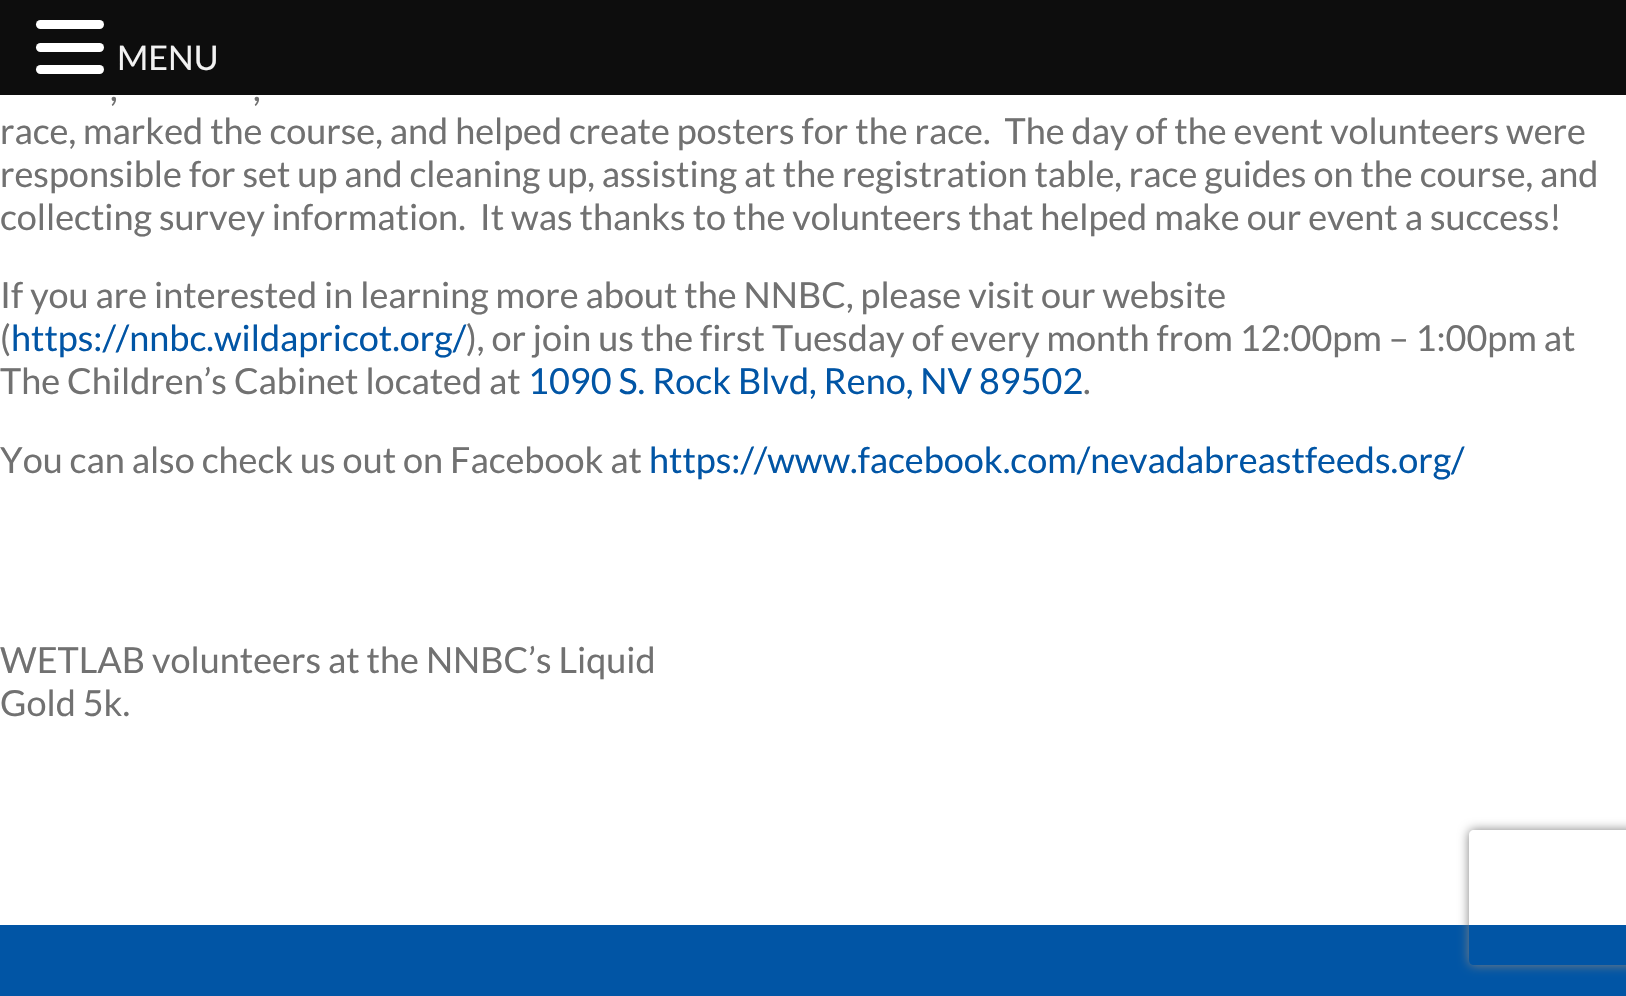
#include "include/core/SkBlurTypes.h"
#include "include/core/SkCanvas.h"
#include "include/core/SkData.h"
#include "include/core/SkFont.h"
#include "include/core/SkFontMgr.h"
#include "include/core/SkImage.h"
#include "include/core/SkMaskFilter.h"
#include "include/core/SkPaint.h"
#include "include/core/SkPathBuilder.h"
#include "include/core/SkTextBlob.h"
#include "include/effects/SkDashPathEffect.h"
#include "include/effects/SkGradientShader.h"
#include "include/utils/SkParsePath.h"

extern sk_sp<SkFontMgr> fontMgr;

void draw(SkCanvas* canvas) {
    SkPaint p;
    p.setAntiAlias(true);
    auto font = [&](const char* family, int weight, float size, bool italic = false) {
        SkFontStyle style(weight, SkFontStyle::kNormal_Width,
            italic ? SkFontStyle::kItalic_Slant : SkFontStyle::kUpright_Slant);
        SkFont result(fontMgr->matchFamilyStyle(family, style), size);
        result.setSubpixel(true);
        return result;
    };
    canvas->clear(0xFFFFFFFF);
    p.setColor(0xFF0D0D0D);
    canvas->drawRect(SkRect::MakeLTRB(0, 0, 1626, 95), p);
    p.setColor(0xFFFFFFFF);
    canvas->drawRoundRect(SkRect::MakeLTRB(36, 20, 104, 29), 4.5f, 4.5f, p);
    canvas->drawRoundRect(SkRect::MakeLTRB(36, 43, 104, 52), 4.5f, 4.5f, p);
    canvas->drawRoundRect(SkRect::MakeLTRB(36, 65, 104, 74), 4.5f, 4.5f, p);
    auto font1 = font("Lato", 400, 34);
    p.setColor(0xFFF2F2F2);
    canvas->drawString("MENU", 117, 70, font1, p);
    auto font2 = font("Lato", 400, 36);
    p.setColor(0xFF717171);
    {
        const struct { const char* s; float x, y; } items[] = {
            {",", 110, 101},
            {",", 253, 101},
            {"race, marked the course, and helped create posters for the race.  The day of the event volunteers were", 0, 144},
            {"responsible for set up and cleaning up, assisting at the registration table, race guides on the course, and", 0, 187},
            {"collecting survey information.  It was thanks to the volunteers that helped make our event a success!", 0, 230},
            {"If you are interested in learning more about the NNBC, please visit our website", 0, 308},
            {"(", 0, 351},
        };
        for (auto [s, x, y] : items) {
            canvas->drawString(s, x, y, font2, p);
        }
    }
    p.setColor(0xFF0155A5);
    canvas->drawString("https://nnbc.wildapricot.org/", 11, 351, font2, p);
    p.setColor(0xFF717171);
    canvas->drawString("), or join us the first Tuesday of every month from 12:00pm – 1:00pm at", 466, 351, font2, p);
    canvas->drawString("The Children’s Cabinet located at", 0, 394, font2, p);
    p.setColor(0xFF0155A5);
    canvas->drawString("1090 S. Rock Blvd, Reno, NV 89502", 528, 394, font2, p);
    p.setColor(0xFF717171);
    canvas->drawString(".", 1083, 394, font2, p);
    canvas->drawString("You can also check us out on Facebook at", 0, 473, font2, p);
    p.setColor(0xFF0155A5);
    canvas->drawString("https://www.facebook.com/nevadabreastfeeds.org/", 649, 473, font2, p);
    p.setColor(0xFF717171);
    canvas->drawString("WETLAB volunteers at the NNBC’s Liquid", 0, 673, font2, p);
    canvas->drawString("Gold 5k.", 0, 716, font2, p);
    p.setColor(0xFF0155A5);
    canvas->drawRect(SkRect::MakeLTRB(0, 925, 1626, 996), p);
    canvas->save();
    canvas->clipPath(SkPathBuilder(SkPathFillType::kEvenOdd).moveTo(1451, 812).lineTo(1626, 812).lineTo(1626, 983).lineTo(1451, 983).close().moveTo(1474, 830).lineTo(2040, 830).cubicTo(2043, 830, 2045, 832, 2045, 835).lineTo(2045, 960).cubicTo(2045, 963, 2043, 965, 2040, 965).lineTo(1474, 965).cubicTo(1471, 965, 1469, 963, 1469, 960).lineTo(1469, 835).cubicTo(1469, 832, 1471, 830, 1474, 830).close().detach(), true);
    p.setColor(0xFF808080);
    p.setMaskFilter(SkMaskFilter::MakeBlur(kNormal_SkBlurStyle, 5.5f));
    canvas->drawRoundRect(SkRect::MakeLTRB(1469, 830, 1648, 965), 5, 5, p);
    p.setMaskFilter(nullptr);
    canvas->restore();
}
